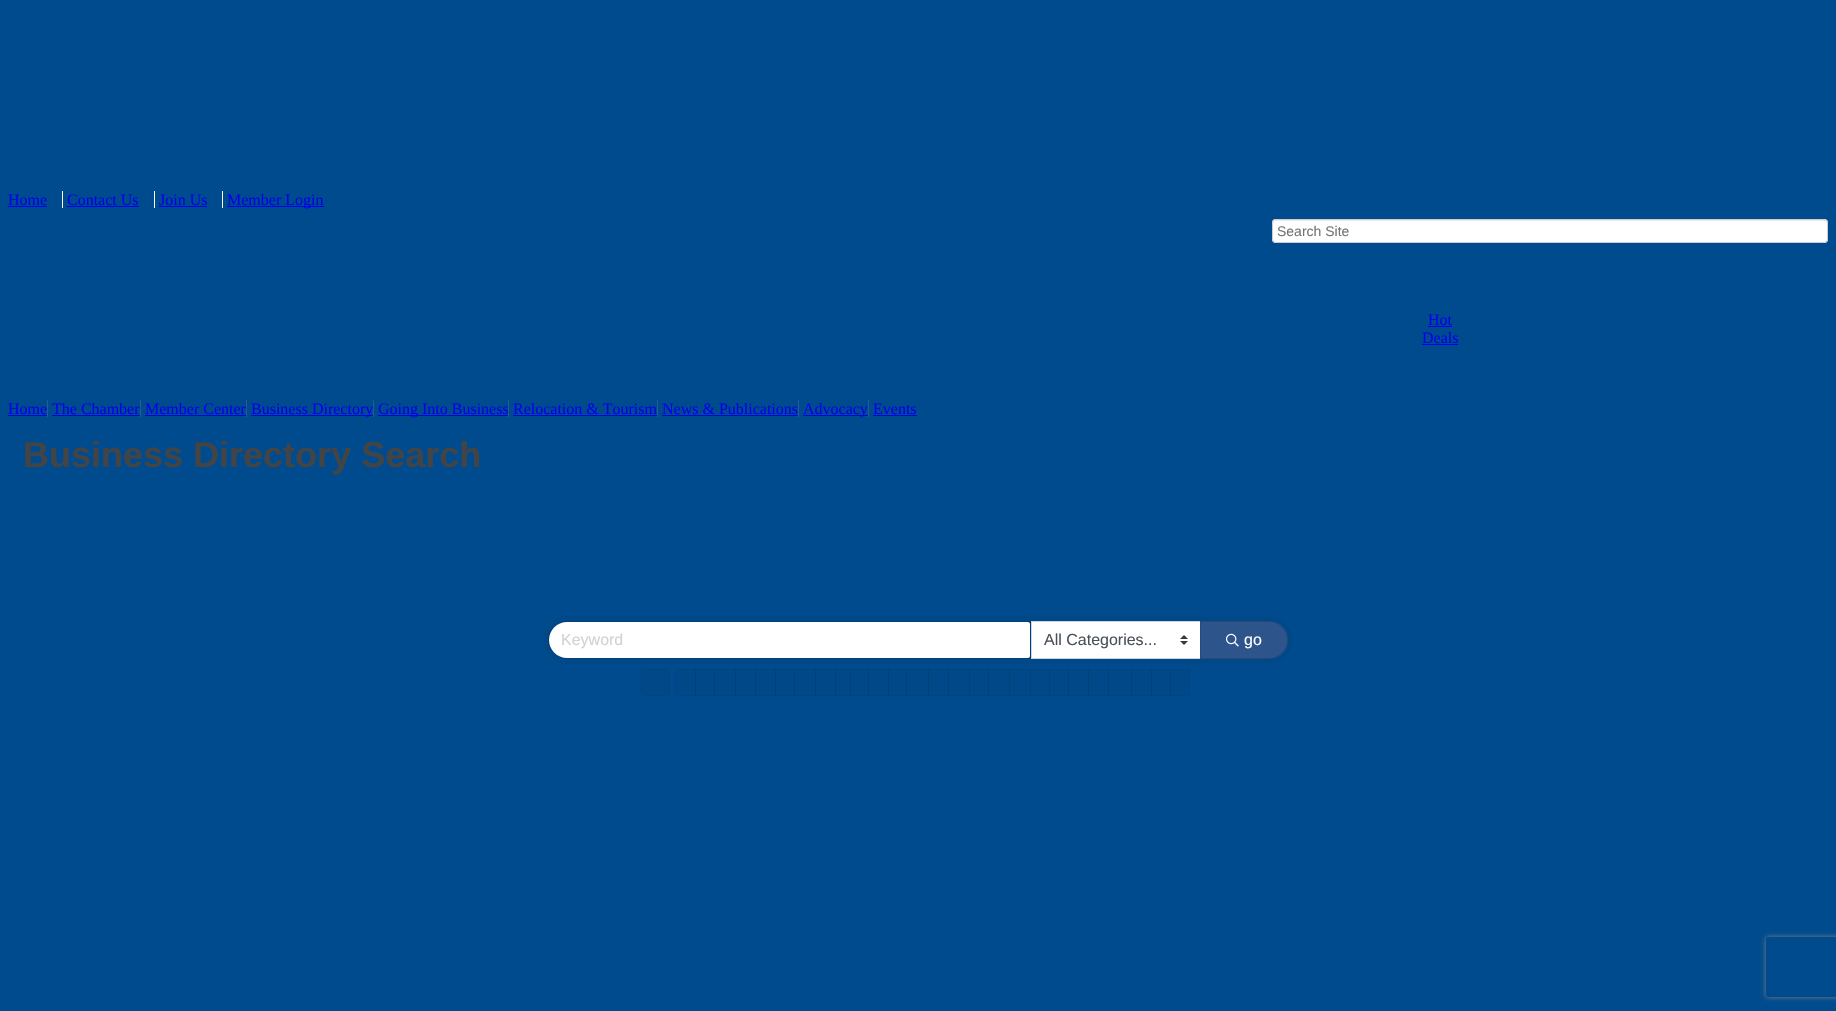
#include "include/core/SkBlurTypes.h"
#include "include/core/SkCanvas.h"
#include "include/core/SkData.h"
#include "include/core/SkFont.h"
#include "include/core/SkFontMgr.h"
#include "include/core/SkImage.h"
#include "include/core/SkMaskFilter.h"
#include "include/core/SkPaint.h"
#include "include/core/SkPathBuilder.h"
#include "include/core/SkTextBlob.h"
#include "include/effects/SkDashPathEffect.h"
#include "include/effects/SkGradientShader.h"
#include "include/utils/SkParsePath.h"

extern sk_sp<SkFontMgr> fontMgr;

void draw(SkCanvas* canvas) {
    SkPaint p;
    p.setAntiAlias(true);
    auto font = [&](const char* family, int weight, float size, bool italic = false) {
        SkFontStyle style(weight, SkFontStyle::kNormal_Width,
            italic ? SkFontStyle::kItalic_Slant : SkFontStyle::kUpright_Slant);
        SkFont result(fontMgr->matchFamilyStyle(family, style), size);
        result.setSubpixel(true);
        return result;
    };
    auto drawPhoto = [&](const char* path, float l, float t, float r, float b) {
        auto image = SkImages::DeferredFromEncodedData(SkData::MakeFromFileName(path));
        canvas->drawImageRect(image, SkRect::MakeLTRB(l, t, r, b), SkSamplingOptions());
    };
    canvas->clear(0xFF004B8E);
    auto font1 = font("Liberation Serif", 400, 16);
    p.setColor(0xFF0000EE);
    canvas->drawString("Home", 8, 205, font1, p);
    p.setColor(0xFFFFFFFF);
    canvas->drawRect(SkRect::MakeLTRB(62, 191, 63, 208), p);
    p.setColor(0xFF0000EE);
    canvas->drawRect(SkRect::MakeLTRB(8, 206, 47, 207), p);
    canvas->drawString("Contact Us", 67, 205, font1, p);
    p.setColor(0xFFFFFFFF);
    canvas->drawRect(SkRect::MakeLTRB(154, 191, 155, 208), p);
    p.setColor(0xFF0000EE);
    canvas->drawRect(SkRect::MakeLTRB(67, 206, 139, 207), p);
    canvas->drawString("Join Us", 159, 205, font1, p);
    {
        const struct { float l, t, r, b; SkColor color; } items[] = {
            {222, 191, 223, 208, 0xFFFFFFFF},
            {159, 206, 207, 207, 0xFF0000EE},
            {227, 206, 324, 207, 0xFF0000EE},
        };
        for (auto [l, t, r, b, color] : items) {
            p.setColor(color);
            canvas->drawRect(SkRect::MakeLTRB(l, t, r, b), p);
        }
    }
    canvas->drawString("Member Login", 227, 205, font1, p);
    p.setColor(0xFFFFFFFF);
    canvas->drawRoundRect(SkRect::MakeLTRB(1272, 219, 1828, 243), 4, 4, p);
    p.setColor(0xFFECECEC);
    canvas->drawPath(SkPathBuilder().moveTo(1276, 221).lineTo(1824, 221).cubicTo(1826, 221, 1827, 222, 1827, 224).cubicTo(1827, 222, 1826, 220, 1824, 220).lineTo(1276, 220).lineTo(1274, 221).lineTo(1273, 222).lineTo(1273, 224).cubicTo(1273, 222, 1274, 221, 1276, 221).close().detach(), p);
    p.setStyle(SkPaint::kStroke_Style);
    p.setStrokeWidth(1);
    p.setColor(0xFFCCCCCC);
    canvas->drawRoundRect(SkRect::MakeLTRB(1272.5f, 219.5f, 1827.5f, 242.5f), 3.5f, 3.5f, p);
    auto font2 = font("Liberation Sans", 400, 14);
    p.setStyle(SkPaint::kFill_Style);
    p.setColor(0xFF757575);
    canvas->drawString("Search Site", 1277, 236, font2, p);
    p.setColor(0xFF0000EE);
    canvas->drawString("Hot", 1428, 325, font1, p);
    canvas->drawRect(SkRect::MakeLTRB(1428, 326, 1452, 327), p);
    canvas->drawString("Deals", 1422, 343, font1, p);
    canvas->drawRect(SkRect::MakeLTRB(1422, 344, 1458, 345), p);
    canvas->drawString("Home", 8, 414, font1, p);
    p.setColor(0xFF265B9A);
    canvas->drawRect(SkRect::MakeLTRB(47, 400, 48, 417), p);
    p.setColor(0xFF0000EE);
    canvas->drawRect(SkRect::MakeLTRB(8, 415, 47, 416), p);
    canvas->drawString("The Chamber", 52, 414, font1, p);
    p.setColor(0xFF265B9A);
    canvas->drawRect(SkRect::MakeLTRB(140, 400, 141, 417), p);
    p.setColor(0xFF0000EE);
    canvas->drawRect(SkRect::MakeLTRB(52, 415, 140, 416), p);
    canvas->drawString("Member Center", 145, 414, font1, p);
    {
        const struct { float l, t, r, b; SkColor color; } items[] = {
            {246, 400, 247, 417, 0xFF265B9A},
            {145, 415, 246, 416, 0xFF0000EE},
            {251, 415, 373, 416, 0xFF0000EE},
        };
        for (auto [l, t, r, b, color] : items) {
            p.setColor(color);
            canvas->drawRect(SkRect::MakeLTRB(l, t, r, b), p);
        }
    }
    canvas->drawString("Business Directory", 251, 414, font1, p);
    p.setColor(0xFF265B9A);
    canvas->drawRect(SkRect::MakeLTRB(373, 400, 374, 417), p);
    p.setColor(0xFF0000EE);
    canvas->drawRect(SkRect::MakeLTRB(378, 415, 508, 416), p);
    canvas->drawString("Going Into Business", 378, 414, font1, p);
    p.setColor(0xFF265B9A);
    canvas->drawRect(SkRect::MakeLTRB(508, 400, 509, 417), p);
    canvas->drawRect(SkRect::MakeLTRB(657, 400, 658, 417), p);
    p.setColor(0xFF0000EE);
    canvas->drawString("Relocation & Tourism", 513, 414, font1, p);
    canvas->drawRect(SkRect::MakeLTRB(513, 415, 657, 416), p);
    canvas->drawString("News & Publications", 662, 414, font1, p);
    {
        const struct { float l, t, r, b; SkColor color; } items[] = {
            {798, 400, 799, 417, 0xFF265B9A},
            {662, 415, 798, 416, 0xFF0000EE},
            {868, 400, 869, 417, 0xFF265B9A},
            {803, 415, 868, 416, 0xFF0000EE},
        };
        for (auto [l, t, r, b, color] : items) {
            p.setColor(color);
            canvas->drawRect(SkRect::MakeLTRB(l, t, r, b), p);
        }
    }
    canvas->drawString("Advocacy", 803, 414, font1, p);
    canvas->drawString("Events", 873, 414, font1, p);
    canvas->drawRect(SkRect::MakeLTRB(873, 415, 917, 416), p);
    auto font3 = font("Liberation Sans", 700, 36);
    p.setColor(0xFF444444);
    canvas->drawString("Business Directory Search", 23, 467, font3, p);
    p.setColor(0xFF004888);
    canvas->drawRoundRect(SkRect::MakeLTRB(543, 616, 1293, 664), 24, 24, p);
    p.setColor(0xFFFFFFFF);
    canvas->drawPath(SkPathBuilder().moveTo(567, 622).lineTo(1028, 622).cubicTo(1029, 622, 1030, 623, 1030, 624).lineTo(1030, 656).cubicTo(1030, 657, 1029, 658, 1028, 658).lineTo(567, 658).cubicTo(557, 658, 549, 650, 549, 640).cubicTo(549, 630, 557, 622, 567, 622).close().detach(), p);
    p.setStyle(SkPaint::kStroke_Style);
    p.setColor(0x1F000000);
    canvas->drawPath(SkPathBuilder().moveTo(567, 621.5f).lineTo(1028, 621.5f).cubicTo(1029.5f, 621.5f, 1030.5f, 622.5f, 1030.5f, 624).lineTo(1030.5f, 656).cubicTo(1030.5f, 657.5f, 1029.5f, 658.5f, 1028, 658.5f).lineTo(567, 658.5f).cubicTo(557, 658.5f, 548.5f, 650, 548.5f, 640).cubicTo(548.5f, 630, 557, 621.5f, 567, 621.5f).close().detach(), p);
    auto font4 = font("Liberation Sans", 400, 16);
    p.setStyle(SkPaint::kFill_Style);
    p.setColor(0xFFD2D2D2);
    canvas->drawString("Keyword", 561, 645, font4, p);
    p.setColor(0xFFFFFFFF);
    canvas->drawRect(SkRect::MakeLTRB(1032, 622, 1200, 658), p);
    drawPhoto("media/1.png", 1180, 635, 1188, 645);
    p.setStyle(SkPaint::kStroke_Style);
    p.setColor(0xFFCED4DA);
    canvas->drawRect(SkRect::MakeLTRB(1031.5f, 621.5f, 1200.5f, 658.5f), p);
    p.setStyle(SkPaint::kFill_Style);
    p.setColor(0xFF495057);
    canvas->drawString("All Categories...", 1044, 645, font4, p);
    p.setColor(0xFF2D548B);
    canvas->drawPath(SkPathBuilder().moveTo(1200, 621).lineTo(1269, 621).cubicTo(1279.5f, 621, 1288, 629.5f, 1288, 640).cubicTo(1288, 650.5f, 1279.5f, 659, 1269, 659).lineTo(1200, 659).close().detach(), p);
    p.setStyle(SkPaint::kStroke_Style);
    p.setColor(0x1F000000);
    canvas->drawPath(SkPathBuilder().moveTo(1200.5f, 621.5f).lineTo(1269, 621.5f).cubicTo(1279, 621.5f, 1287.5f, 630, 1287.5f, 640).cubicTo(1287.5f, 650, 1279, 658.5f, 1269, 658.5f).lineTo(1200.5f, 658.5f).close().detach(), p);
    drawPhoto("media/2.png", 1226, 633, 1239, 647);
    p.setStyle(SkPaint::kFill_Style);
    p.setColor(0xFFFFFFFF);
    canvas->drawString("go", 1244, 645, font4, p);
    p.setColor(0xFF004888);
    canvas->drawRoundRect(SkRect::MakeLTRB(641, 669, 670, 696), 5, 5, p);
    p.setStyle(SkPaint::kStroke_Style);
    p.setColor(0x0A000000);
    canvas->drawRect(SkRect::MakeLTRB(641.5f, 669.5f, 669.5f, 695.5f), p);
    p.setStyle(SkPaint::kFill_Style);
    p.setColor(0xFF004888);
    canvas->drawPath(SkPathBuilder().moveTo(680, 669).lineTo(696, 669).lineTo(696, 696).lineTo(680, 696).cubicTo(677, 696, 675, 694, 675, 691).lineTo(675, 674).cubicTo(675, 671, 677, 669, 680, 669).close().detach(), p);
    p.setStyle(SkPaint::kStroke_Style);
    p.setColor(0x0A000000);
    canvas->drawRect(SkRect::MakeLTRB(675.5f, 669.5f, 695.5f, 695.5f), p);
    p.setStyle(SkPaint::kFill_Style);
    canvas->drawRect(SkRect::MakeLTRB(695, 669, 715, 696), p);
    p.setStyle(SkPaint::kStroke_Style);
    canvas->drawRect(SkRect::MakeLTRB(695.5f, 669.5f, 714.5f, 695.5f), p);
    p.setStyle(SkPaint::kFill_Style);
    canvas->drawRect(SkRect::MakeLTRB(714, 669, 736, 696), p);
    p.setStyle(SkPaint::kStroke_Style);
    canvas->drawRect(SkRect::MakeLTRB(714.5f, 669.5f, 735.5f, 695.5f), p);
    p.setStyle(SkPaint::kFill_Style);
    canvas->drawRect(SkRect::MakeLTRB(735, 669, 756, 696), p);
    p.setStyle(SkPaint::kStroke_Style);
    canvas->drawRect(SkRect::MakeLTRB(735.5f, 669.5f, 755.5f, 695.5f), p);
    p.setStyle(SkPaint::kFill_Style);
    canvas->drawRect(SkRect::MakeLTRB(755, 669, 776, 696), p);
    p.setStyle(SkPaint::kStroke_Style);
    canvas->drawRect(SkRect::MakeLTRB(755.5f, 669.5f, 775.5f, 695.5f), p);
    p.setStyle(SkPaint::kFill_Style);
    canvas->drawRect(SkRect::MakeLTRB(775, 669, 795, 696), p);
    p.setStyle(SkPaint::kStroke_Style);
    canvas->drawRect(SkRect::MakeLTRB(775.5f, 669.5f, 794.5f, 695.5f), p);
    p.setStyle(SkPaint::kFill_Style);
    canvas->drawRect(SkRect::MakeLTRB(794, 669, 816, 696), p);
    p.setStyle(SkPaint::kStroke_Style);
    canvas->drawRect(SkRect::MakeLTRB(794.5f, 669.5f, 815.5f, 695.5f), p);
    p.setStyle(SkPaint::kFill_Style);
    canvas->drawRect(SkRect::MakeLTRB(815, 669, 836, 696), p);
    p.setStyle(SkPaint::kStroke_Style);
    canvas->drawRect(SkRect::MakeLTRB(815.5f, 669.5f, 835.5f, 695.5f), p);
    p.setStyle(SkPaint::kFill_Style);
    canvas->drawRect(SkRect::MakeLTRB(835, 669, 851, 696), p);
    p.setStyle(SkPaint::kStroke_Style);
    canvas->drawRect(SkRect::MakeLTRB(835.5f, 669.5f, 850.5f, 695.5f), p);
    p.setStyle(SkPaint::kFill_Style);
    canvas->drawRect(SkRect::MakeLTRB(850, 669, 869, 696), p);
    p.setStyle(SkPaint::kStroke_Style);
    canvas->drawRect(SkRect::MakeLTRB(850.5f, 669.5f, 868.5f, 695.5f), p);
    p.setStyle(SkPaint::kFill_Style);
    canvas->drawRect(SkRect::MakeLTRB(868, 669, 889, 696), p);
    p.setStyle(SkPaint::kStroke_Style);
    canvas->drawRect(SkRect::MakeLTRB(868.5f, 669.5f, 888.5f, 695.5f), p);
    p.setStyle(SkPaint::kFill_Style);
    canvas->drawRect(SkRect::MakeLTRB(888, 669, 907, 696), p);
    p.setStyle(SkPaint::kStroke_Style);
    canvas->drawRect(SkRect::MakeLTRB(888.5f, 669.5f, 906.5f, 695.5f), p);
    p.setStyle(SkPaint::kFill_Style);
    canvas->drawRect(SkRect::MakeLTRB(906, 669, 929, 696), p);
    p.setStyle(SkPaint::kStroke_Style);
    canvas->drawRect(SkRect::MakeLTRB(906.5f, 669.5f, 928.5f, 695.5f), p);
    p.setStyle(SkPaint::kFill_Style);
    canvas->drawRect(SkRect::MakeLTRB(928, 669, 949, 696), p);
    p.setStyle(SkPaint::kStroke_Style);
    canvas->drawRect(SkRect::MakeLTRB(928.5f, 669.5f, 948.5f, 695.5f), p);
    p.setStyle(SkPaint::kFill_Style);
    canvas->drawRect(SkRect::MakeLTRB(948, 669, 970, 696), p);
    p.setStyle(SkPaint::kStroke_Style);
    canvas->drawRect(SkRect::MakeLTRB(948.5f, 669.5f, 969.5f, 695.5f), p);
    p.setStyle(SkPaint::kFill_Style);
    canvas->drawRect(SkRect::MakeLTRB(969, 669, 989, 696), p);
    p.setStyle(SkPaint::kStroke_Style);
    canvas->drawRect(SkRect::MakeLTRB(969.5f, 669.5f, 988.5f, 695.5f), p);
    p.setStyle(SkPaint::kFill_Style);
    canvas->drawRect(SkRect::MakeLTRB(988, 669, 1010, 696), p);
    p.setStyle(SkPaint::kStroke_Style);
    canvas->drawRect(SkRect::MakeLTRB(988.5f, 669.5f, 1009.5f, 695.5f), p);
    p.setStyle(SkPaint::kFill_Style);
    canvas->drawRect(SkRect::MakeLTRB(1009, 669, 1031, 696), p);
    p.setStyle(SkPaint::kStroke_Style);
    canvas->drawRect(SkRect::MakeLTRB(1009.5f, 669.5f, 1030.5f, 695.5f), p);
    p.setStyle(SkPaint::kFill_Style);
    canvas->drawRect(SkRect::MakeLTRB(1030, 669, 1050, 696), p);
    p.setStyle(SkPaint::kStroke_Style);
    canvas->drawRect(SkRect::MakeLTRB(1030.5f, 669.5f, 1049.5f, 695.5f), p);
    p.setStyle(SkPaint::kFill_Style);
    canvas->drawRect(SkRect::MakeLTRB(1049, 669, 1069, 696), p);
    p.setStyle(SkPaint::kStroke_Style);
    canvas->drawRect(SkRect::MakeLTRB(1049.5f, 669.5f, 1068.5f, 695.5f), p);
    p.setStyle(SkPaint::kFill_Style);
    canvas->drawRect(SkRect::MakeLTRB(1068, 669, 1089, 696), p);
    p.setStyle(SkPaint::kStroke_Style);
    canvas->drawRect(SkRect::MakeLTRB(1068.5f, 669.5f, 1088.5f, 695.5f), p);
    p.setStyle(SkPaint::kFill_Style);
    canvas->drawRect(SkRect::MakeLTRB(1088, 669, 1109, 696), p);
    p.setStyle(SkPaint::kStroke_Style);
    canvas->drawRect(SkRect::MakeLTRB(1088.5f, 669.5f, 1108.5f, 695.5f), p);
    p.setStyle(SkPaint::kFill_Style);
    canvas->drawRect(SkRect::MakeLTRB(1108, 669, 1132, 696), p);
    p.setStyle(SkPaint::kStroke_Style);
    canvas->drawRect(SkRect::MakeLTRB(1108.5f, 669.5f, 1131.5f, 695.5f), p);
    p.setStyle(SkPaint::kFill_Style);
    canvas->drawRect(SkRect::MakeLTRB(1131, 669, 1152, 696), p);
    p.setStyle(SkPaint::kStroke_Style);
    canvas->drawRect(SkRect::MakeLTRB(1131.5f, 669.5f, 1151.5f, 695.5f), p);
    p.setStyle(SkPaint::kFill_Style);
    canvas->drawRect(SkRect::MakeLTRB(1151, 669, 1171, 696), p);
    p.setStyle(SkPaint::kStroke_Style);
    canvas->drawRect(SkRect::MakeLTRB(1151.5f, 669.5f, 1170.5f, 695.5f), p);
    p.setStyle(SkPaint::kFill_Style);
    canvas->drawRect(SkRect::MakeLTRB(1170, 669, 1190, 696), p);
    p.setStyle(SkPaint::kStroke_Style);
    canvas->drawRect(SkRect::MakeLTRB(1170.5f, 669.5f, 1189.5f, 695.5f), p);
    canvas->save();
    canvas->clipPath(SkPathBuilder(SkPathFillType::kEvenOdd).moveTo(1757, 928).lineTo(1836, 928).lineTo(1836, 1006).lineTo(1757, 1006).close().moveTo(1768, 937).lineTo(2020, 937).cubicTo(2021, 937, 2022, 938, 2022, 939).lineTo(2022, 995).cubicTo(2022, 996, 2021, 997, 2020, 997).lineTo(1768, 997).cubicTo(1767, 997, 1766, 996, 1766, 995).lineTo(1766, 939).cubicTo(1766, 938, 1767, 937, 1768, 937).close().detach(), true);
    p.setStyle(SkPaint::kFill_Style);
    p.setColor(0xFF808080);
    p.setMaskFilter(SkMaskFilter::MakeBlur(kNormal_SkBlurStyle, 2.5f));
    canvas->drawRoundRect(SkRect::MakeLTRB(1766, 937, 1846, 997), 2, 2, p);
    p.setMaskFilter(nullptr);
    canvas->restore();
}
